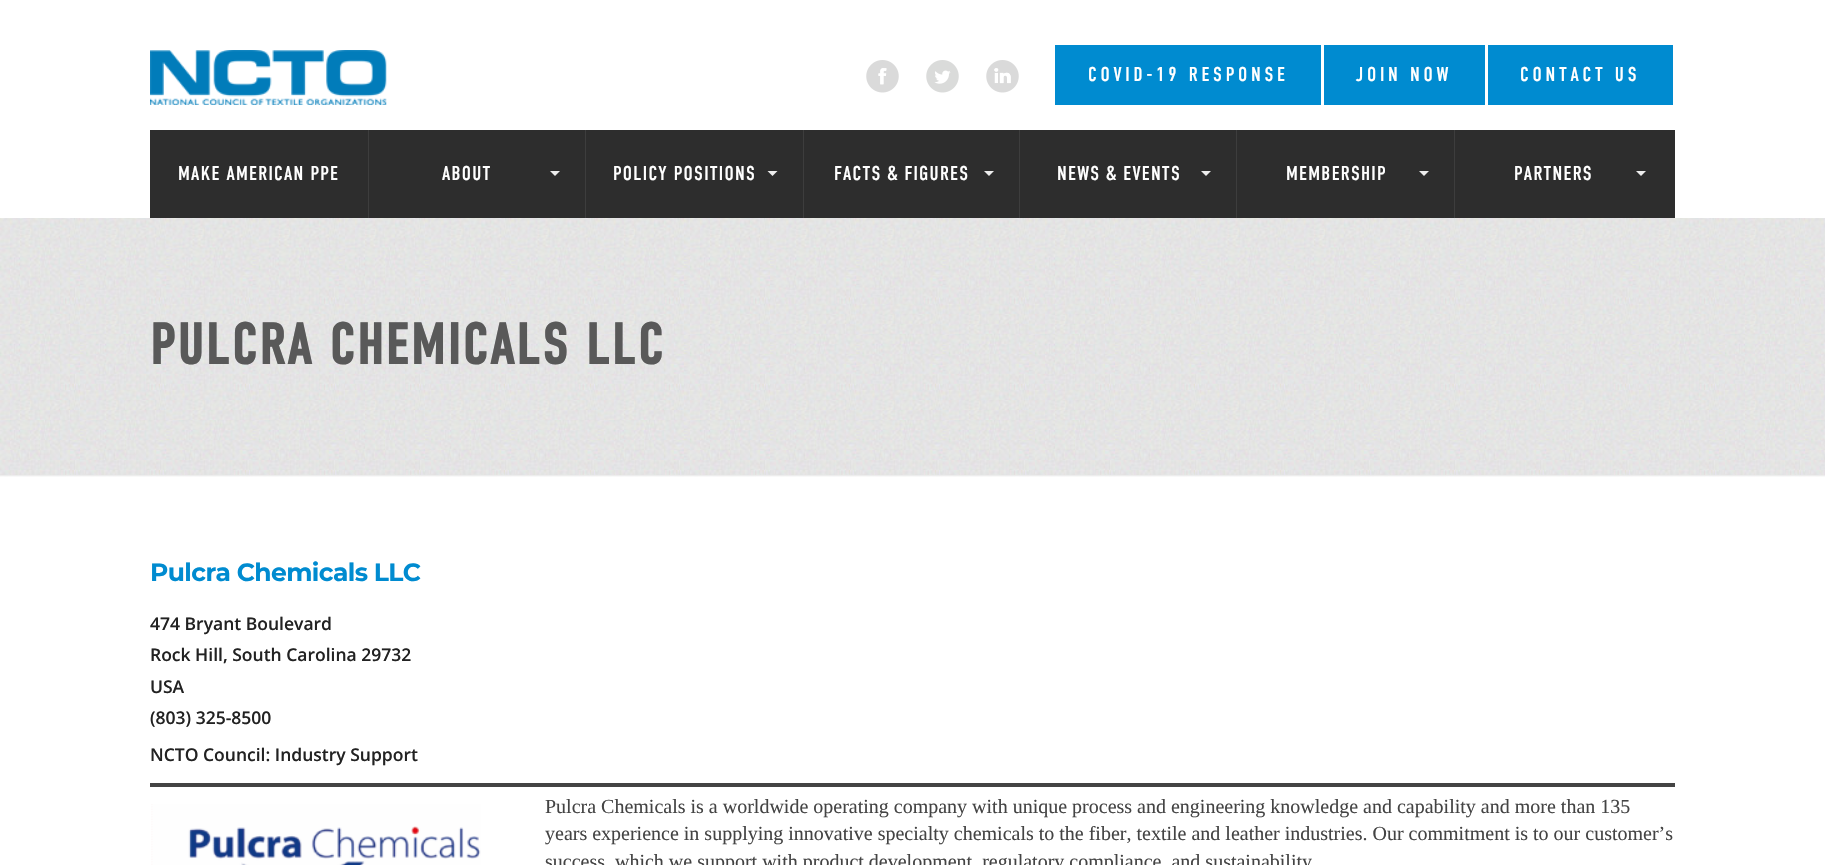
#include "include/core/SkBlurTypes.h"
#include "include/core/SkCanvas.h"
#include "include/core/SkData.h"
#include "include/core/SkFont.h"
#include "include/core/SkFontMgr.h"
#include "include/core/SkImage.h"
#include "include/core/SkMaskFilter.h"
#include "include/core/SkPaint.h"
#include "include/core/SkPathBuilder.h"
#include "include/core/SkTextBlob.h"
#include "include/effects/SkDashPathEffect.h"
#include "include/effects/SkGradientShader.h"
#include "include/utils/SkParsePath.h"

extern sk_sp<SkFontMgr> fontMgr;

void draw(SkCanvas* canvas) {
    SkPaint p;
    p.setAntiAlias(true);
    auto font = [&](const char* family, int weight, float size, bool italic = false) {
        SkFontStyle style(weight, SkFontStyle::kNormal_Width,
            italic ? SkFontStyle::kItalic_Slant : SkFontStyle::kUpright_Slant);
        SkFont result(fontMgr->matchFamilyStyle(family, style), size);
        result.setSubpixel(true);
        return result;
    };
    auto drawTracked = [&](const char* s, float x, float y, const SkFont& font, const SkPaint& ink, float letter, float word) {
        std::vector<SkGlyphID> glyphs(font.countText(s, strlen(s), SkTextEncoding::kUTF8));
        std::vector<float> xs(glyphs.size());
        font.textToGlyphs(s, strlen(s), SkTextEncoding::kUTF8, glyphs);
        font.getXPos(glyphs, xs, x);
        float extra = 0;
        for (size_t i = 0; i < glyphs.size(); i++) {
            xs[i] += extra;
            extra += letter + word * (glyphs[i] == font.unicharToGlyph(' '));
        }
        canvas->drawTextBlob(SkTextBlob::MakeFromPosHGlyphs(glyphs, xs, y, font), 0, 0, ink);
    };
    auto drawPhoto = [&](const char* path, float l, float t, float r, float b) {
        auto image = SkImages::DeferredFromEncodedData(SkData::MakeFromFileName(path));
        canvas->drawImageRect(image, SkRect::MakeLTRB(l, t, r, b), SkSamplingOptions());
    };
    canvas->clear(0xFFFFFFFF);
    drawPhoto("media/1.png", 150, 50, 387, 105);
    drawPhoto("media/2.png", 866, 60, 899, 93);
    drawPhoto("media/3.png", 926, 60, 959, 93);
    drawPhoto("media/4.png", 986, 60, 1019, 93);
    p.setColor(0xFF008BD0);
    canvas->drawRect(SkRect::MakeLTRB(1055, 45, 1321, 105), p);
    auto font1 = font("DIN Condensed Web", 400, 20);
    p.setColor(0xFFFFFFFF);
    drawTracked("COVID-19 RESPONSE", 1088, 81, font1, p, 3.75f, 0);
    p.setColor(0xFF008BD0);
    canvas->drawRect(SkRect::MakeLTRB(1324, 45, 1485, 105), p);
    p.setColor(0xFFFFFFFF);
    drawTracked("JOIN NOW", 1356, 81, font1, p, 3.75f, 0);
    p.setColor(0xFF008BD0);
    canvas->drawRect(SkRect::MakeLTRB(1488, 45, 1673, 105), p);
    p.setColor(0xFFFFFFFF);
    drawTracked("CONTACT US", 1520, 81, font1, p, 3.75f, 0);
    p.setColor(0xFF2D2D2D);
    canvas->drawRect(SkRect::MakeLTRB(150, 130, 1675, 218), p);
    p.setColor(0xFFFFFFFF);
    drawTracked("MAKE AMERICAN PPE", 178, 180, font1, p, 1.25f, 0);
    p.setColor(0xFF3D3D3D);
    canvas->drawRect(SkRect::MakeLTRB(368, 130, 369, 218), p);
    p.setColor(0xFFFFFFFF);
    drawTracked("ABOUT", 442, 180, font1, p, 1.25f, 0);
    p.setColor(0xFFEDEDED);
    canvas->drawPath(SkPathBuilder().moveTo(550, 171).lineTo(560, 171).lineTo(555, 176).close().detach(), p);
    p.setColor(0xFF3D3D3D);
    canvas->drawRect(SkRect::MakeLTRB(585, 130, 586, 218), p);
    p.setColor(0xFFFFFFFF);
    drawTracked("POLICY POSITIONS", 613, 180, font1, p, 1.25f, 0);
    p.setColor(0xFFEDEDED);
    canvas->drawPath(SkPathBuilder().moveTo(767.5f, 171).lineTo(777.5f, 171).lineTo(772.5f, 176).close().detach(), p);
    p.setColor(0xFF3D3D3D);
    canvas->drawRect(SkRect::MakeLTRB(803, 130, 804, 218), p);
    p.setColor(0xFFFFFFFF);
    drawTracked("FACTS & FIGURES", 834, 180, font1, p, 1.25f, 0);
    p.setColor(0xFFEDEDED);
    canvas->drawPath(SkPathBuilder().moveTo(984, 171).lineTo(994, 171).lineTo(989, 176).close().detach(), p);
    p.setColor(0xFF3D3D3D);
    canvas->drawRect(SkRect::MakeLTRB(1019, 130, 1020, 218), p);
    p.setColor(0xFFFFFFFF);
    drawTracked("NEWS & EVENTS", 1057, 180, font1, p, 1.25f, 0);
    p.setColor(0xFFEDEDED);
    canvas->drawPath(SkPathBuilder().moveTo(1201, 171).lineTo(1211, 171).lineTo(1206, 176).close().detach(), p);
    p.setColor(0xFF3D3D3D);
    canvas->drawRect(SkRect::MakeLTRB(1236, 130, 1237, 218), p);
    p.setColor(0xFFFFFFFF);
    drawTracked("MEMBERSHIP", 1286, 180, font1, p, 1.25f, 0);
    p.setColor(0xFFEDEDED);
    canvas->drawPath(SkPathBuilder().moveTo(1419, 171).lineTo(1429, 171).lineTo(1424, 176).close().detach(), p);
    p.setColor(0xFF3D3D3D);
    canvas->drawRect(SkRect::MakeLTRB(1454, 130, 1455, 218), p);
    p.setColor(0xFFFFFFFF);
    drawTracked("PARTNERS", 1514, 180, font1, p, 1.25f, 0);
    p.setColor(0xFFEDEDED);
    canvas->drawPath(SkPathBuilder().moveTo(1636, 171).lineTo(1646, 171).lineTo(1641, 176).close().detach(), p);
    drawPhoto("media/5.png", 0, 218, 1825, 477);
    canvas->drawRect(SkRect::MakeLTRB(0, 475, 1825, 476), p);
    auto font2 = font("DIN Condensed Web", 700, 57.5f);
    p.setColor(0xFF595959);
    drawTracked("PULCRA CHEMICALS LLC", 150, 364, font2, p, 2.5f, 0);
    auto font3 = font("Montserrat", 700, 25);
    p.setColor(0xFF008BD0);
    drawTracked("Pulcra Chemicals LLC", 150, 581, font3, p, -0.6f, 0);
    auto font4 = font("Open Sans", 600, 17.5f);
    p.setColor(0xFF222222);
    {
        const struct { const char* s; float x, y; } items[] = {
            {"474 Bryant Boulevard", 150, 630},
            {"Rock Hill, South Carolina 29732", 150, 661},
            {"USA", 150, 693},
            {"(803) 325-8500", 150, 724},
            {"NCTO Council: Industry Support", 150, 761},
        };
        for (auto [s, x, y] : items) {
            canvas->drawString(s, x, y, font4, p);
        }
    }
    p.setColor(0xFF444444);
    canvas->drawRect(SkRect::MakeLTRB(150, 783, 1675, 787), p);
    drawPhoto("media/6.png", 151, 804, 481, 865);
    auto font5 = font("Liberation Serif", 400, 20);
    {
        const struct { const char* s; float x, y; } items[] = {
            {"Pulcra Chemicals is a worldwide operating company with unique process and engineering knowledge and capability and more than 135", 545, 813},
            {"years experience in supplying innovative specialty chemicals to the fiber, textile and leather industries. Our commitment is to our customer’s", 545, 840},
            {"success, which we support with product development, regulatory compliance, and sustainability", 545, 868},
        };
        for (auto [s, x, y] : items) {
            canvas->drawString(s, x, y, font5, p);
        }
    }
}
